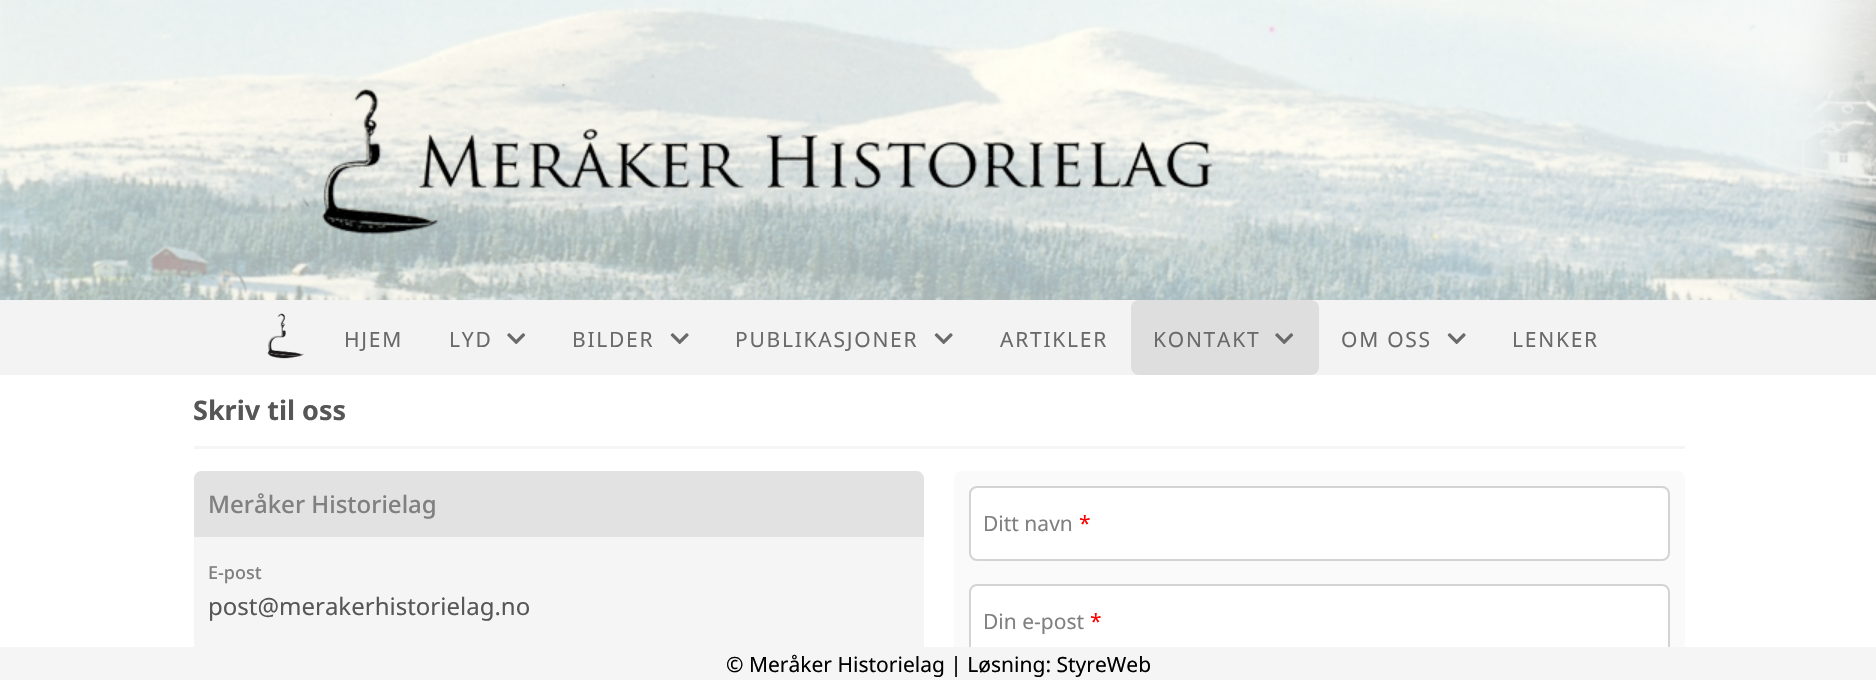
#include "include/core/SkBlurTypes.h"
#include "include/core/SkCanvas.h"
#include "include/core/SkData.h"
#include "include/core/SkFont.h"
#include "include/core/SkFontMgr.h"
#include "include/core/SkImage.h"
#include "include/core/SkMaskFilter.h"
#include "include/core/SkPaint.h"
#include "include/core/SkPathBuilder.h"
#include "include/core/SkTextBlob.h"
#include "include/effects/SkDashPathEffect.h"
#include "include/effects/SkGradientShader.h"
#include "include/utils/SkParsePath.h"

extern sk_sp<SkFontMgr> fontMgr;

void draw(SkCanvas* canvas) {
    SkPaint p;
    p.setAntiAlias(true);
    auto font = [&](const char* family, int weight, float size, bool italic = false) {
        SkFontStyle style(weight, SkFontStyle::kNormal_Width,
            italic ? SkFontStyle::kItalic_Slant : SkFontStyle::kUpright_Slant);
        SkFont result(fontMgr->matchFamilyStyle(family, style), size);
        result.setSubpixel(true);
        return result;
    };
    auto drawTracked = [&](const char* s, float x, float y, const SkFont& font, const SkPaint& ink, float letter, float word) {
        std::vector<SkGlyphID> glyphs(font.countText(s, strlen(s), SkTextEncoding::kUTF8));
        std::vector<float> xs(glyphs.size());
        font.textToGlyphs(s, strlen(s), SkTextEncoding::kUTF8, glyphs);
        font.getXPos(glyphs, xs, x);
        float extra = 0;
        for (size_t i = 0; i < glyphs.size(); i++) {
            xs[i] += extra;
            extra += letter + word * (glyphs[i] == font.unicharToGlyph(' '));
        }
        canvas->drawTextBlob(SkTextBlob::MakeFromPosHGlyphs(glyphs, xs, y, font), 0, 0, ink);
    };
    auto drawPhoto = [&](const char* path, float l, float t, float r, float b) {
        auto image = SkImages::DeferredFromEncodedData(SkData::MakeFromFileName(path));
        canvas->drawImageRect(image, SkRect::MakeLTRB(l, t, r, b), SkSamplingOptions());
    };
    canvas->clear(0xFFFFFFFF);
    drawPhoto("media/1.png", 0, 0, 1876, 300);
    p.setColor(0xFFF3F3F3);
    canvas->drawRect(SkRect::MakeLTRB(0, 300, 1876, 375), p);
    drawPhoto("media/2.png", 267, 313, 304, 359);
    auto font1 = font("Noto Sans", 400, 21);
    p.setColor(0xFF696969);
    drawTracked("HJEM", 344, 347, font1, p, 1.75f, 0);
    drawTracked("LYD", 449, 347, font1, p, 1.75f, 0);
    drawPhoto("media/3.png", 507, 333, 526, 344);
    drawTracked("BILDER", 572, 347, font1, p, 1.75f, 0);
    drawPhoto("media/4.png", 670, 333, 689, 344);
    drawTracked("PUBLIKASJONER", 735, 347, font1, p, 1.75f, 0);
    drawPhoto("media/4.png", 934, 333, 953, 344);
    drawTracked("ARTIKLER", 1000, 347, font1, p, 1.75f, 0);
    p.setColor(0xFFDEDEDE);
    canvas->drawRoundRect(SkRect::MakeLTRB(1131, 300, 1319, 375), 8, 8, p);
    p.setColor(0xFF696969);
    drawTracked("KONTAKT", 1153, 347, font1, p, 1.75f, 0);
    drawPhoto("media/5.png", 1275, 333, 1294, 344);
    drawTracked("OM OSS", 1341, 347, font1, p, 1.75f, 0);
    drawPhoto("media/4.png", 1447, 333, 1466, 344);
    drawTracked("LENKER", 1512, 347, font1, p, 1.75f, 0);
    p.setColor(0xFFF5F5F5);
    canvas->drawRect(SkRect::MakeLTRB(194, 446, 1685, 449), p);
    auto font2 = font("Noto Sans", 700, 27);
    p.setColor(0xFF565656);
    canvas->drawString("Skriv til oss", 193, 420, font2, p);
    p.setColor(0xFFF5F5F5);
    canvas->drawPath(SkPathBuilder().moveTo(202, 471).lineTo(916, 471).cubicTo(920.5f, 471, 924, 474.5f, 924, 479).lineTo(924, 647).lineTo(194, 647).lineTo(194, 479).cubicTo(194, 474.5f, 197.5f, 471, 202, 471).close().detach(), p);
    p.setColor(0xFFE2E2E2);
    canvas->drawPath(SkPathBuilder().moveTo(202, 471).lineTo(916, 471).cubicTo(920.5f, 471, 924, 474.5f, 924, 479).lineTo(924, 537).lineTo(194, 537).lineTo(194, 479).cubicTo(194, 474.5f, 197.5f, 471, 202, 471).close().detach(), p);
    auto font3 = font("Noto Sans", 500, 24);
    p.setColor(0xFF808080);
    canvas->drawString("Meråker Historielag", 208, 513, font3, p);
    auto font4 = font("Noto Sans", 500, 18);
    canvas->drawString("E-post", 208, 579, font4, p);
    auto font5 = font("Noto Sans", 400, 24);
    p.setColor(0xFF565656);
    canvas->drawString("post@merakerhistorielag.no", 208, 615, font5, p);
    p.setColor(0xFFFAFAFA);
    canvas->drawPath(SkPathBuilder().moveTo(962, 471).lineTo(1677, 471).cubicTo(1681.5f, 471, 1685, 474.5f, 1685, 479).lineTo(1685, 647).lineTo(954, 647).lineTo(954, 479).cubicTo(954, 474.5f, 957.5f, 471, 962, 471).close().detach(), p);
    p.setColor(0xFFFFFFFF);
    canvas->drawRoundRect(SkRect::MakeLTRB(970, 487, 1669, 560), 7, 7, p);
    p.setStyle(SkPaint::kStroke_Style);
    p.setStrokeWidth(2);
    p.setColor(0xFFD3D3D3);
    canvas->drawRoundRect(SkRect::MakeLTRB(970, 487, 1669, 560), 7, 7, p);
    p.setStyle(SkPaint::kFill_Style);
    p.setColor(0xFF808080);
    canvas->drawString("Ditt navn", 983, 531, font1, p);
    p.setColor(0xFFFF0000);
    canvas->drawString("*", 1079, 531, font1, p);
    p.setColor(0xFFFFFFFF);
    canvas->drawPath(SkPathBuilder().moveTo(977, 584).lineTo(1662, 584).cubicTo(1666.5f, 584, 1670, 587.5f, 1670, 592).lineTo(1670, 647).lineTo(969, 647).lineTo(969, 592).cubicTo(969, 587.5f, 972.5f, 584, 977, 584).close().detach(), p);
    p.setStyle(SkPaint::kStroke_Style);
    p.setColor(0xFFD3D3D3);
    canvas->drawRoundRect(SkRect::MakeLTRB(970, 585, 1669, 658), 7, 7, p);
    p.setStyle(SkPaint::kFill_Style);
    p.setColor(0xFF808080);
    canvas->drawString("Din e-post", 983, 629, font1, p);
    p.setColor(0xFFFF0000);
    canvas->drawString("*", 1090, 629, font1, p);
    p.setColor(0xFFF5F5F5);
    canvas->drawRect(SkRect::MakeLTRB(0, 647, 1876, 680), p);
    p.setColor(0xFF000000);
    canvas->drawString("© Meråker Historielag | Løsning: StyreWeb", 726, 672, font1, p);
}
